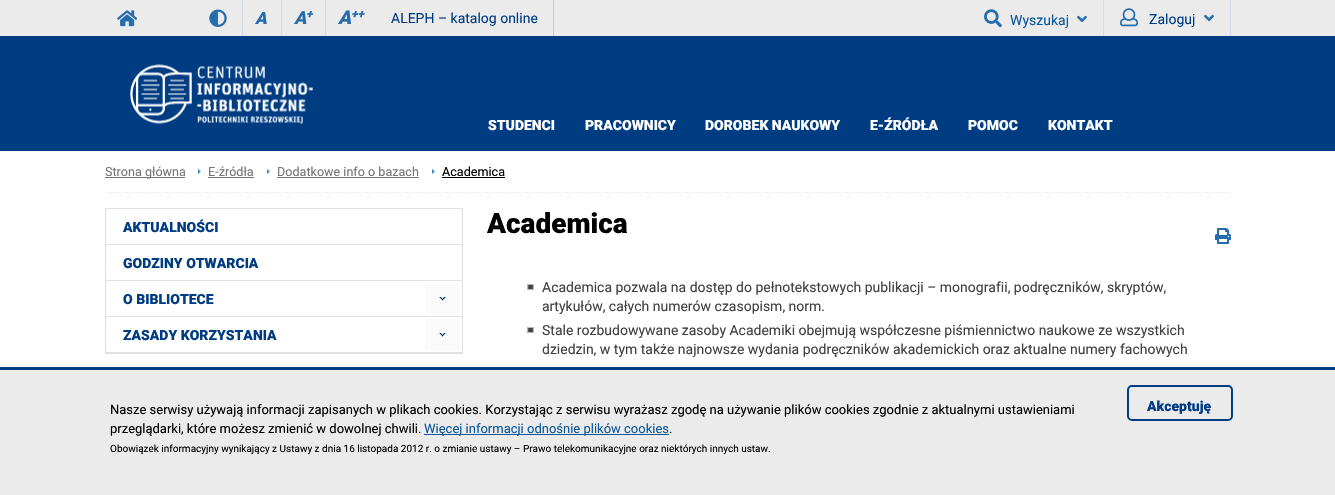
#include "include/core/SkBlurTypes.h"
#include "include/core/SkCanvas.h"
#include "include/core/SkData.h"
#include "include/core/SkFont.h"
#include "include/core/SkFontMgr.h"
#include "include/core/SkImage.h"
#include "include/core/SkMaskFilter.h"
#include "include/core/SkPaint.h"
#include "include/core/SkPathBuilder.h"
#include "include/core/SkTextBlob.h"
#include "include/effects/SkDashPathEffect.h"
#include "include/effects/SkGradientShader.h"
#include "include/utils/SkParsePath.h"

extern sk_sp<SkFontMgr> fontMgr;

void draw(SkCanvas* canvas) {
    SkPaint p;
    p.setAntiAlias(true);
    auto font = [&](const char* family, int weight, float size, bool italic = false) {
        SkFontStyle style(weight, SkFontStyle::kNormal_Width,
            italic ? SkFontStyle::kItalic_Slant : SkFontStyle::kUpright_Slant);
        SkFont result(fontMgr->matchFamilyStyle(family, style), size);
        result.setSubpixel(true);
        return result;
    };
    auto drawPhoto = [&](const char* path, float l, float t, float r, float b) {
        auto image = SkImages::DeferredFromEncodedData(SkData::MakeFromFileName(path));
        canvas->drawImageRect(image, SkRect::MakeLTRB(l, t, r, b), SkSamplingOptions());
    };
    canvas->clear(0xFFFFFFFF);
    p.setColor(0xFF003C82);
    canvas->drawRect(SkRect::MakeLTRB(0, 36, 1335, 151), p);
    p.setColor(0xFFEBEBEB);
    canvas->drawRect(SkRect::MakeLTRB(0, 0, 1335, 36), p);
    drawPhoto("media/1.png", 117, 10, 138, 27);
    drawPhoto("media/2.png", 209, 9, 227, 27);
    p.setColor(0xFFD1DEE9);
    canvas->drawRect(SkRect::MakeLTRB(242, 0, 243, 36), p);
    auto font1 = font("Roboto", 900, 17, true);
    p.setColor(0xFF256DAD);
    canvas->drawString("A", 255, 24, font1, p);
    p.setColor(0xFFD1DEE9);
    canvas->drawRect(SkRect::MakeLTRB(281, 0, 282, 36), p);
    auto font2 = font("Roboto", 900, 18, true);
    p.setColor(0xFF256DAD);
    canvas->drawString("A", 294, 24, font2, p);
    auto font3 = font("Roboto", 900, 12, true);
    canvas->drawString("+", 306, 18, font3, p);
    p.setColor(0xFFD1DEE9);
    canvas->drawRect(SkRect::MakeLTRB(325, 0, 326, 36), p);
    auto font4 = font("Roboto", 900, 19, true);
    p.setColor(0xFF256DAD);
    canvas->drawString("A", 338, 24, font4, p);
    canvas->drawString("++", 351, 18, font3, p);
    p.setColor(0xFFCDCDCD);
    canvas->drawRect(SkRect::MakeLTRB(553, 0, 554, 36), p);
    auto font5 = font("Roboto", 400, 14);
    p.setColor(0xFF003C82);
    canvas->drawString("ALEPH – katalog online", 391, 23, font5, p);
    p.setColor(0xFFD1DEE9);
    canvas->drawRect(SkRect::MakeLTRB(1103, 0, 1104, 36), p);
    drawPhoto("media/3.png", 984, 9, 1002, 28);
    p.setColor(0xFF0B589A);
    canvas->drawString("Wyszukaj", 1010, 25, font5, p);
    drawPhoto("media/4.png", 1077, 15, 1087, 23);
    p.setColor(0xFFD1DEE9);
    canvas->drawRect(SkRect::MakeLTRB(1230, 0, 1231, 36), p);
    drawPhoto("media/5.png", 1120, 8, 1138, 27);
    p.setColor(0xFF003C82);
    canvas->drawString("Zaloguj", 1149, 24, font5, p);
    drawPhoto("media/4.png", 1204, 14, 1214, 22);
    drawPhoto("media/6.png", 130, 64, 314, 124);
    auto font6 = font("Roboto", 900, 14);
    p.setColor(0xFFFFFFFF);
    {
        const struct { const char* s; float x, y; } items[] = {
            {"STUDENCI", 488, 130},
            {"PRACOWNICY", 585, 130},
            {"DOROBEK NAUKOWY", 705, 130},
            {"E-ŹRÓDŁA", 870, 130},
            {"POMOC", 968, 130},
            {"KONTAKT", 1048, 130},
        };
        for (auto [s, x, y] : items) {
            canvas->drawString(s, x, y, font6, p);
        }
    }
    p.setColor(0xFF757575);
    canvas->drawRect(SkRect::MakeLTRB(105, 177, 185, 178), p);
    auto font7 = font("Roboto", 400, 12.6f);
    canvas->drawString("Strona główna", 105, 176, font7, p);
    drawPhoto("media/7.png", 198, 168, 201, 175);
    canvas->drawString("E-źródła", 208, 176, font7, p);
    canvas->drawRect(SkRect::MakeLTRB(208, 177, 254, 178), p);
    drawPhoto("media/7.png", 267, 168, 270, 175);
    canvas->drawString("Dodatkowe info o bazach", 277, 176, font7, p);
    canvas->drawRect(SkRect::MakeLTRB(277, 177, 419, 178), p);
    drawPhoto("media/7.png", 432, 168, 435, 175);
    p.setColor(0xFF000000);
    canvas->drawString("Academica", 442, 176, font7, p);
    canvas->drawRect(SkRect::MakeLTRB(442, 177, 505, 178), p);
    drawPhoto("media/8.png", 105, 192, 1231, 197);
    p.setStyle(SkPaint::kStroke_Style);
    p.setStrokeWidth(1);
    p.setColor(0xFFE1E1E1);
    canvas->drawRect(SkRect::MakeLTRB(105.5f, 208.5f, 462.5f, 353.5f), p);
    p.setStyle(SkPaint::kFill_Style);
    canvas->drawRect(SkRect::MakeLTRB(106, 244, 462, 245), p);
    p.setColor(0xFF003C82);
    canvas->drawString("AKTUALNOŚCI", 123, 232, font6, p);
    p.setColor(0xFFE1E1E1);
    canvas->drawRect(SkRect::MakeLTRB(106, 280, 462, 281), p);
    p.setColor(0xFF003C82);
    canvas->drawString("GODZINY OTWARCIA", 123, 268, font6, p);
    p.setColor(0xFFE1E1E1);
    canvas->drawRect(SkRect::MakeLTRB(106, 316, 462, 317), p);
    p.setColor(0xFF003C82);
    canvas->drawString("O BIBLIOTECE", 123, 304, font6, p);
    p.setColor(0xFFFAFAFA);
    canvas->drawRoundRect(SkRect::MakeLTRB(425, 283, 460, 314), 3, 3, p);
    drawPhoto("media/9.png", 439, 297, 446, 301);
    p.setColor(0xFFE1E1E1);
    canvas->drawRect(SkRect::MakeLTRB(106, 352, 462, 353), p);
    p.setColor(0xFF003C82);
    canvas->drawString("ZASADY KORZYSTANIA", 123, 340, font6, p);
    p.setColor(0xFFFAFAFA);
    canvas->drawRoundRect(SkRect::MakeLTRB(425, 319, 460, 350), 3, 3, p);
    drawPhoto("media/9.png", 439, 333, 446, 337);
    auto font8 = font("Roboto", 900, 28);
    p.setColor(0xFF000000);
    canvas->drawString("Academica", 487, 233, font8, p);
    drawPhoto("media/10.png", 1215, 228, 1231, 244);
    drawPhoto("media/11.png", 527, 284, 534, 290);
    p.setColor(0xFF404040);
    canvas->drawString("Academica pozwala na dostęp do pełnotekstowych publikacji – monografii, podręczników, skryptów,", 542, 292, font5, p);
    canvas->drawString("artykułów, całych numerów czasopism, norm.", 542, 311, font5, p);
    drawPhoto("media/11.png", 527, 327, 534, 333);
    canvas->drawString("Stale rozbudowywane zasoby Academiki obejmują współczesne piśmiennictwo naukowe ze wszystkich", 542, 335, font5, p);
    canvas->drawString("dziedzin, w tym także najnowsze wydania podręczników akademickich oraz aktualne numery fachowych", 542, 354, font5, p);
    p.setColor(0xFFEBEBEB);
    canvas->drawRect(SkRect::MakeLTRB(0, 370, 1335, 495), p);
    p.setColor(0xFF003C82);
    canvas->drawRect(SkRect::MakeLTRB(0, 367, 1335, 370), p);
    auto font9 = font("Roboto", 400, 13);
    p.setColor(0xFF000000);
    canvas->drawString("Nasze serwisy używają informacji zapisanych w plikach cookies. Korzystając z serwisu wyrażasz zgodę na używanie plików cookies zgodnie z aktualnymi ustawieniami", 110, 414, font9, p);
    canvas->drawString("przeglądarki, które możesz zmienić w dowolnej chwili.", 110, 433, font9, p);
    p.setColor(0xFF0B589A);
    canvas->drawRect(SkRect::MakeLTRB(424, 434, 669, 435), p);
    canvas->drawString("Więcej informacji odnośnie plików cookies", 424, 433, font9, p);
    p.setColor(0xFF000000);
    canvas->drawString(".", 669, 433, font9, p);
    auto font10 = font("Roboto", 400, 10);
    canvas->drawString("Obowiązek informacyjny wynikający z Ustawy z dnia 16 listopada 2012 r. o zmianie ustawy – Prawo telekomunikacyjne oraz niektórych innych ustaw.", 110, 452, font10, p);
    p.setStyle(SkPaint::kStroke_Style);
    p.setStrokeWidth(2);
    p.setColor(0xFF003C82);
    canvas->drawRoundRect(SkRect::MakeLTRB(1128, 386, 1232, 420), 4, 4, p);
    p.setStyle(SkPaint::kFill_Style);
    canvas->drawString("Akceptuję", 1147, 411, font6, p);
}
